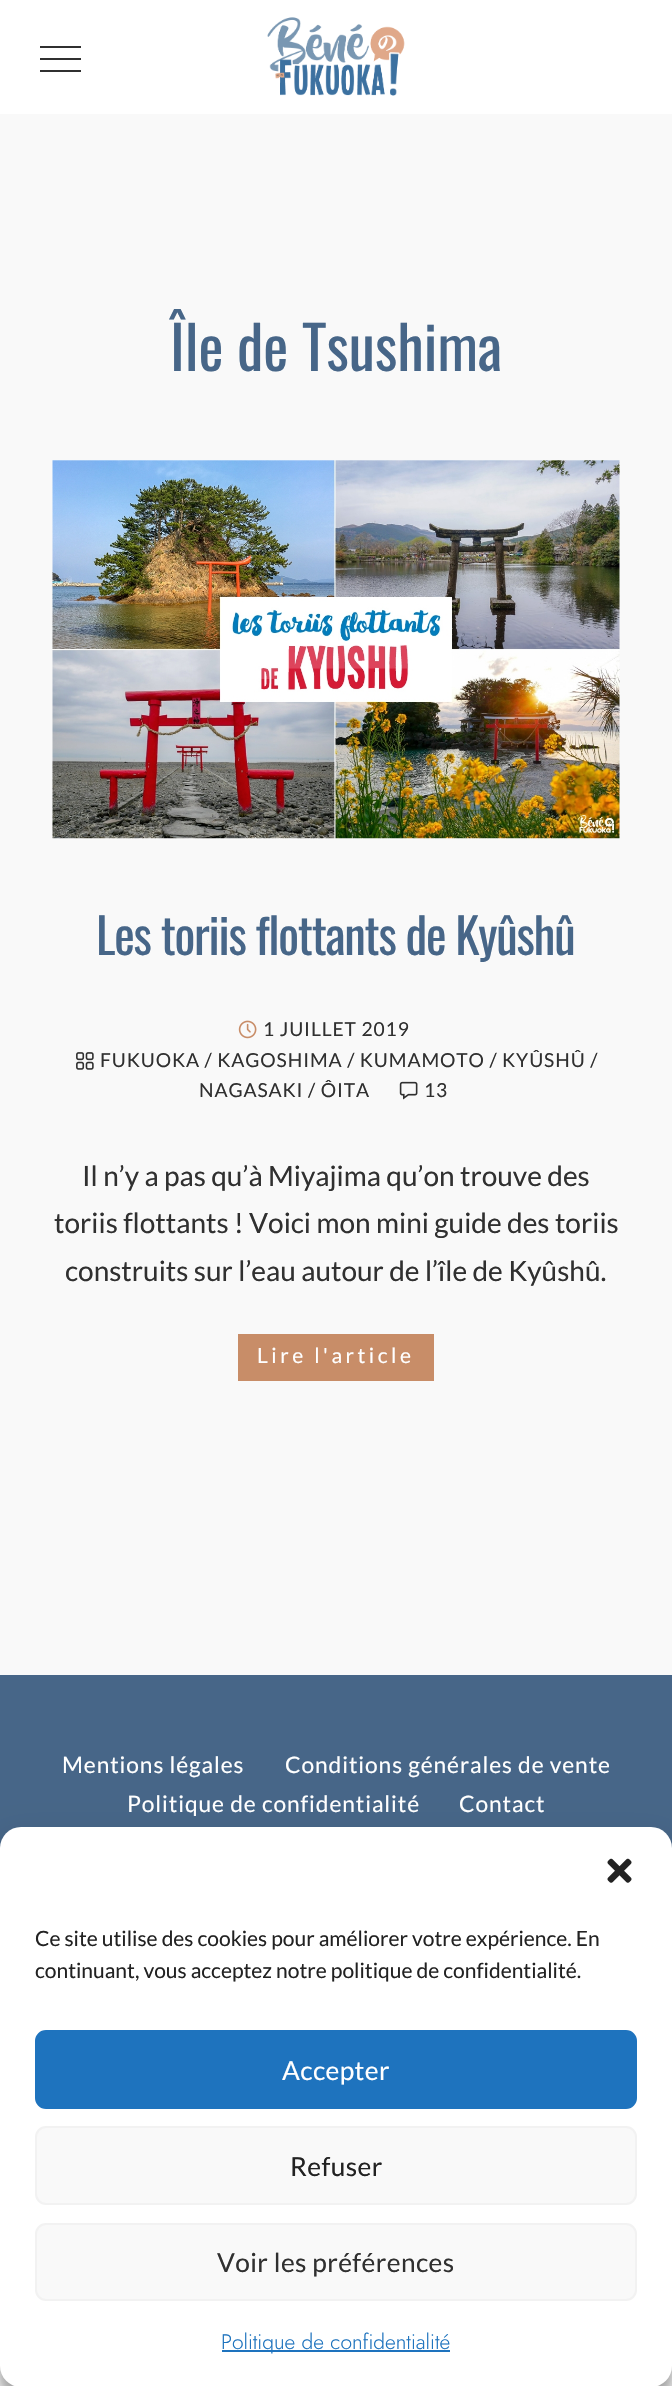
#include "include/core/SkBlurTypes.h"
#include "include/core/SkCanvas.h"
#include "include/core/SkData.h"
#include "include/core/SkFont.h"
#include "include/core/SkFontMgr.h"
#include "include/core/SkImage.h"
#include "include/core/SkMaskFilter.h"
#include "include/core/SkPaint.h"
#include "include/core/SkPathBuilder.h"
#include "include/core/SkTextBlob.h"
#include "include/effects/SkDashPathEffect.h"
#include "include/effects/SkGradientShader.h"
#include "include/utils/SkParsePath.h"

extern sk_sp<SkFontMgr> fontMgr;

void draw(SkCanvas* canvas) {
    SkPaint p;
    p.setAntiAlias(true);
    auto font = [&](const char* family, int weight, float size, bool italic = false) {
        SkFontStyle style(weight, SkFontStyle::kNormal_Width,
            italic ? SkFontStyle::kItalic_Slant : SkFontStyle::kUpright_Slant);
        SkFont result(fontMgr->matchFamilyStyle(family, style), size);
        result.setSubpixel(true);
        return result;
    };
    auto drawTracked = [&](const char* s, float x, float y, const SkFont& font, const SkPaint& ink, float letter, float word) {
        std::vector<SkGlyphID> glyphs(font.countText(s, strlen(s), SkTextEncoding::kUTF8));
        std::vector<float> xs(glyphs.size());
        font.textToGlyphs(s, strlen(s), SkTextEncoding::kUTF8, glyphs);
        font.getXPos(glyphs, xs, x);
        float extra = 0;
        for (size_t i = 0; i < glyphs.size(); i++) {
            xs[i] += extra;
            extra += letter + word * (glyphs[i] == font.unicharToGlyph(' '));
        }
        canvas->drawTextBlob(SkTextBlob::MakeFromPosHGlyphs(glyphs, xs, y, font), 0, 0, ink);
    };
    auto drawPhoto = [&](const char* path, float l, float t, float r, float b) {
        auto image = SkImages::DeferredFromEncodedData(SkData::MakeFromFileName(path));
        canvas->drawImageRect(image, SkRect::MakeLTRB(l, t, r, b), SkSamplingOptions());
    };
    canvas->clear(0xFFF9F9F9);
    p.setColor(0xFFFFFFFF);
    canvas->drawRect(SkRect::MakeLTRB(0, 0, 672, 114), p);
    drawPhoto("media/1.png", 267, 17, 405, 96);
    {
        const struct { float l, t, r, b; SkColor color; } items[] = {
            {40, 58, 81, 60, 0xFF303030},
            {40, 46, 81, 48, 0xFF303030},
            {40, 70, 81, 72, 0xFF303030},
        };
        for (auto [l, t, r, b, color] : items) {
            p.setColor(color);
            canvas->drawRect(SkRect::MakeLTRB(l, t, r, b), p);
        }
    }
    auto font1 = font("Oswald", 400, 59.5f);
    p.setColor(0xFF476688);
    canvas->drawString("Île de Tsushima", 170, 371, font1, p);
    drawPhoto("media/2.png", 52, 460, 620, 839);
    auto font2 = font("Oswald", 400, 49);
    drawTracked("Les toriis flottants de Kyûshû", 96, 955, font2, p, -1.25f, 0);
    drawPhoto("media/3.png", 238, 1020, 257, 1039);
    auto font3 = font("Lato", 400, 19.25f);
    p.setColor(0xFF303030);
    drawTracked("1 JUILLET 2019", 263, 1036, font3, p, 0.9f, 0);
    drawPhoto("media/4.png", 76, 1052, 94, 1070);
    drawTracked("FUKUOKA / KAGOSHIMA / KUMAMOTO / KYÛSHÛ /", 100, 1067, font3, p, 0.9f, 0);
    drawTracked("NAGASAKI / ÔITA", 199, 1097, font3, p, 0.9f, 0);
    drawPhoto("media/5.png", 399, 1081, 418, 1100);
    drawTracked("13", 424, 1097, font3, p, 0.9f, 0);
    auto font4 = font("Lato", 400, 28);
    {
        const struct { const char* s; float x, y; } items[] = {
            {"Il n’y a pas qu’à Miyajima qu’on trouve des", 82, 1186},
            {"toriis flottants ! Voici mon mini guide des toriis", 54, 1233},
            {"construits sur l’eau autour de l’île de Kyûshû.", 65, 1281},
        };
        for (auto [s, x, y] : items) {
            canvas->drawString(s, x, y, font4, p);
        }
    }
    p.setColor(0xFFC88D68);
    canvas->drawRect(SkRect::MakeLTRB(238, 1334, 434, 1381), p);
    auto font5 = font("Lato", 400, 21);
    p.setColor(0xFFFFFFFF);
    drawTracked("Lire l'article", 257, 1363, font5, p, 3.5f, 0);
    p.setColor(0xFF476688);
    canvas->drawRect(SkRect::MakeLTRB(0, 1675, 672, 1848), p);
    auto font6 = font("Lato", 400, 22.75f);
    p.setColor(0xFFFFFFFF);
    {
        const struct { const char* s; float x, y; } items[] = {
            {"Mentions légales", 62, 1773},
            {"Conditions générales de vente", 285, 1773},
            {"Politique de confidentialité", 127, 1812},
            {"Contact", 459, 1812},
        };
        for (auto [s, x, y] : items) {
            drawTracked(s, x, y, font6, p, 0.9f, 0);
        }
    }
    p.setColor(0x3B000000);
    p.setMaskFilter(SkMaskFilter::MakeBlur(kNormal_SkBlurStyle, 5));
    canvas->drawRoundRect(SkRect::MakeLTRB(0, 1838, 672, 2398), 21, 21, p);
    p.setMaskFilter(nullptr);
    p.setColor(0x30000000);
    p.setMaskFilter(SkMaskFilter::MakeBlur(kNormal_SkBlurStyle, 17.5f));
    canvas->drawRoundRect(SkRect::MakeLTRB(0, 1845, 672, 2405), 21, 21, p);
    p.setMaskFilter(nullptr);
    p.setColor(0xFFFFFFFF);
    canvas->drawRoundRect(SkRect::MakeLTRB(0, 1827, 672, 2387), 21, 21, p);
    drawPhoto("media/6.png", 607, 1858, 632, 1883);
    p.setColor(0xFF222222);
    canvas->drawString("Ce site utilise des cookies pour améliorer votre expérience. En", 35, 1946, font5, p);
    canvas->drawString("continuant, vous acceptez notre politique de confidentialité.", 35, 1978, font5, p);
    p.setColor(0xFF1E73BE);
    canvas->drawRoundRect(SkRect::MakeLTRB(36, 2031, 636, 2108), 10, 10, p);
    p.setStyle(SkPaint::kStroke_Style);
    p.setStrokeWidth(2);
    canvas->drawRoundRect(SkRect::MakeLTRB(36, 2031, 636, 2108), 10, 10, p);
    auto font7 = font("Lato", 400, 26.25f);
    p.setStyle(SkPaint::kFill_Style);
    p.setColor(0xFFFFFFFF);
    drawTracked("Accepter", 282, 2080, font7, p, 0.4f, 0);
    p.setColor(0xFFF9F9F9);
    canvas->drawRoundRect(SkRect::MakeLTRB(36, 2127, 636, 2204), 10, 10, p);
    p.setStyle(SkPaint::kStroke_Style);
    p.setColor(0xFFF2F2F2);
    canvas->drawRoundRect(SkRect::MakeLTRB(36, 2127, 636, 2204), 10, 10, p);
    p.setStyle(SkPaint::kFill_Style);
    p.setColor(0xFF222222);
    drawTracked("Refuser", 290, 2176, font7, p, 0.4f, 0);
    p.setColor(0xFFF9F9F9);
    canvas->drawRoundRect(SkRect::MakeLTRB(36, 2224, 636, 2300), 10, 10, p);
    p.setStyle(SkPaint::kStroke_Style);
    p.setColor(0xFFF2F2F2);
    canvas->drawRoundRect(SkRect::MakeLTRB(36, 2224, 636, 2300), 10, 10, p);
    p.setStyle(SkPaint::kFill_Style);
    p.setColor(0xFF303030);
    drawTracked("Voir les préférences", 217, 2272, font7, p, 0.4f, 0);
    p.setColor(0xFF1E73BE);
    canvas->drawRect(SkRect::MakeLTRB(222, 2350, 450, 2352), p);
    auto font8 = font("Jost", 300, 21);
    canvas->drawString("Politique de confidentialité", 221, 2349, font8, p);
}
